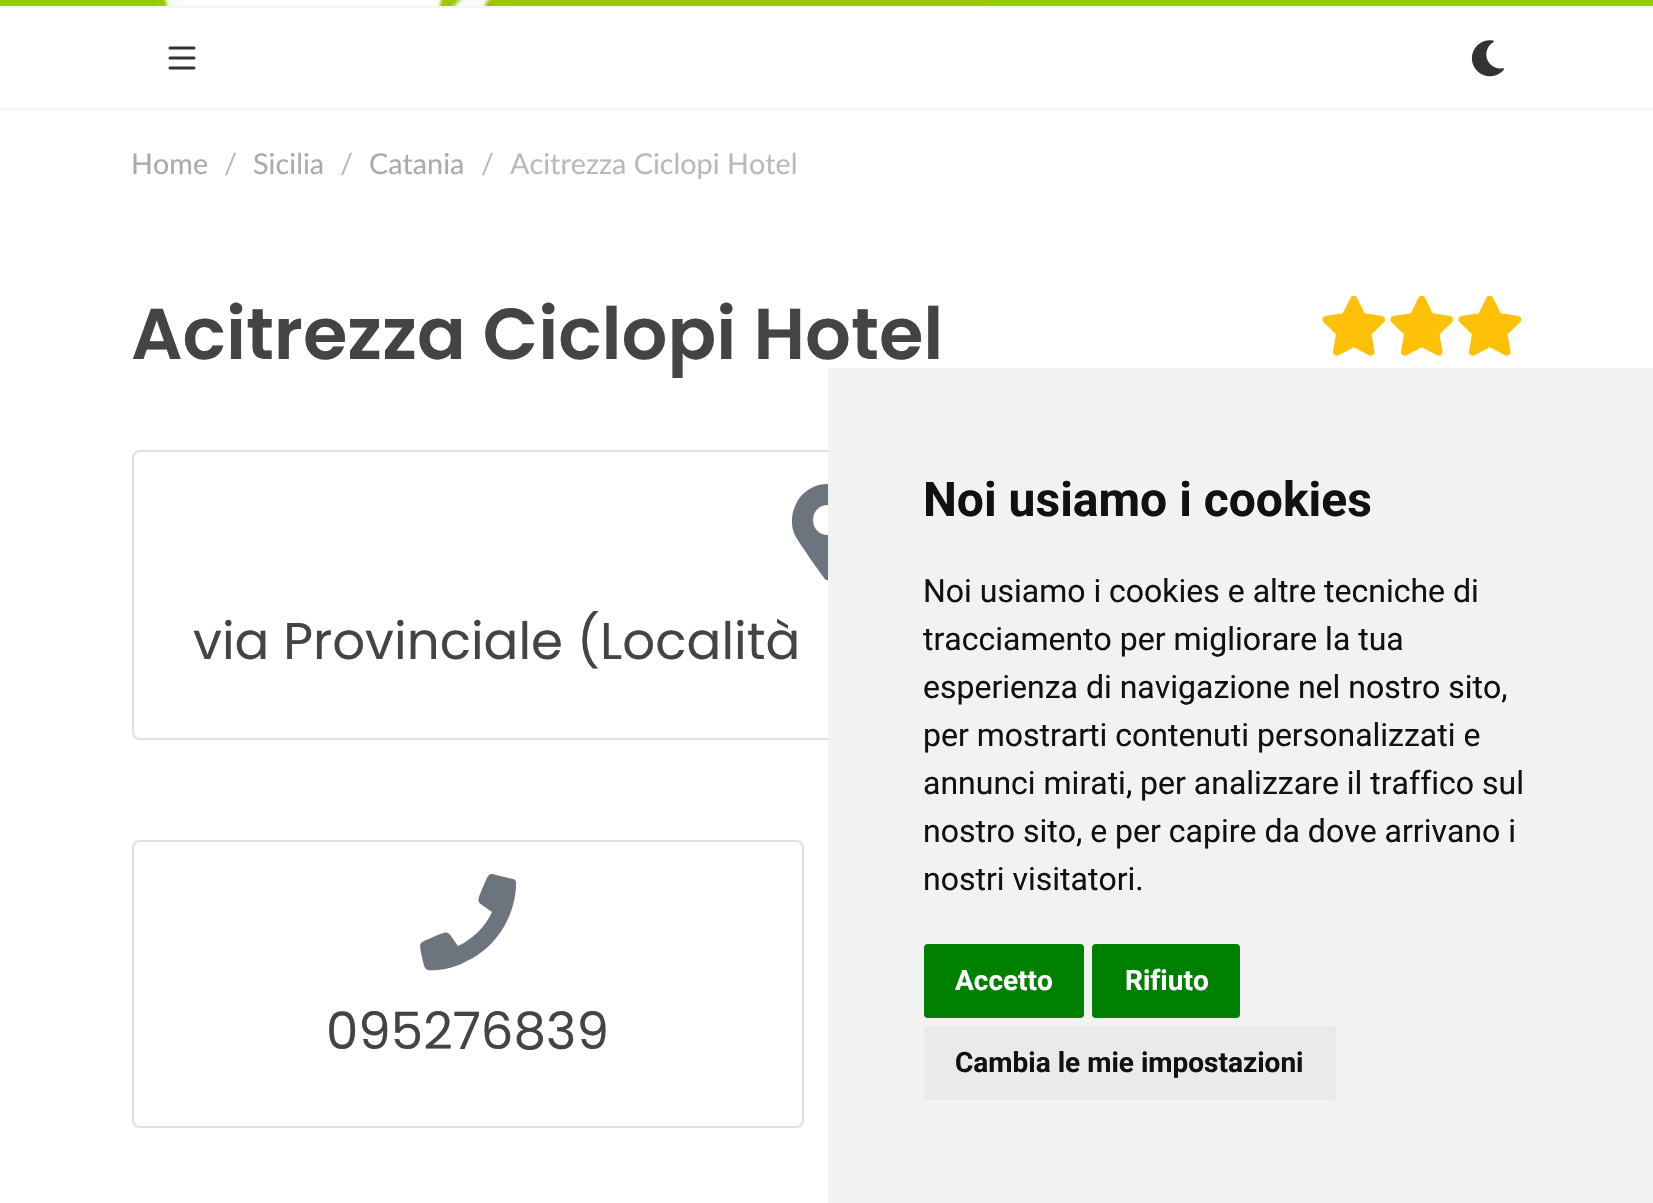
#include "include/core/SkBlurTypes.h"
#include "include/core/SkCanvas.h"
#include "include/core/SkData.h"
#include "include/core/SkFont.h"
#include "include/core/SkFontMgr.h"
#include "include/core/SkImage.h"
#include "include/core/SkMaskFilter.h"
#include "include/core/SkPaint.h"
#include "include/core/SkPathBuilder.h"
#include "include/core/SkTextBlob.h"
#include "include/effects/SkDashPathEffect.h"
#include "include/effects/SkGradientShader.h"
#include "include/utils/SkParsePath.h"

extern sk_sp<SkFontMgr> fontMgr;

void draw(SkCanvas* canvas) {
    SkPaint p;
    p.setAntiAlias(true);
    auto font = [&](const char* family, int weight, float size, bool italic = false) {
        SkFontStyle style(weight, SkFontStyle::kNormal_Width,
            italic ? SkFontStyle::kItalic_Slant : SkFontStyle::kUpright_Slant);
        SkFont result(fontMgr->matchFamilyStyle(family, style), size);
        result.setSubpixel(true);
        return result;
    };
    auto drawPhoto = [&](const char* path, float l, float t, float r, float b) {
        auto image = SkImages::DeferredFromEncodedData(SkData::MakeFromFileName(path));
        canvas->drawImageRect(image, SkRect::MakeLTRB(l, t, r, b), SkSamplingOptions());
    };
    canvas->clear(0xFFFFFFFF);
    p.setColor(0xFFF5F5F5);
    canvas->drawRect(SkRect::MakeLTRB(0, 108, 1653, 110), p);
    p.setColor(0xFF98CD03);
    canvas->drawRect(SkRect::MakeLTRB(0, 0, 1653, 6), p);
    drawPhoto("media/1.png", 151, 0, 984, 6);
    p.setColor(0xFFF5F5F5);
    canvas->drawRect(SkRect::MakeLTRB(0, 6, 1653, 8), p);
    p.setStyle(SkPaint::kStroke_Style);
    p.setStrokeWidth(3);
    p.setStrokeCap(SkPaint::kRound_Cap);
    p.setColor(0xFF333333);
    canvas->drawPath(SkPathBuilder().moveTo(170, 48).lineTo(194, 48).moveTo(170, 58).lineTo(194, 58).moveTo(194, 68).lineTo(170, 68).detach(), p);
    drawPhoto("media/2.png", 1471, 40, 1504, 77);
    auto font1 = font("Lato", 400, 28.75f);
    p.setStyle(SkPaint::kFill_Style);
    p.setColor(0xFFAAAAAA);
    canvas->drawString("Home", 131, 174, font1, p);
    p.setColor(0xFFB6BABE);
    canvas->drawString("/", 224, 174, font1, p);
    p.setColor(0xFFAAAAAA);
    canvas->drawString("Sicilia", 253, 174, font1, p);
    p.setColor(0xFFB6BABE);
    canvas->drawString("/", 340, 174, font1, p);
    p.setColor(0xFFAAAAAA);
    canvas->drawString("Catania", 369, 174, font1, p);
    p.setColor(0xFFB6BABE);
    canvas->drawString("/", 481, 174, font1, p);
    canvas->drawString("Acitrezza Ciclopi Hotel", 510, 174, font1, p);
    auto font2 = font("Poppins", 600, 72);
    p.setColor(0xFF444444);
    canvas->drawString("Acitrezza Ciclopi Hotel", 131, 359, font2, p);
    drawPhoto("media/3.png", 1322, 295, 1386, 356);
    drawPhoto("media/3.png", 1390, 295, 1454, 356);
    drawPhoto("media/3.png", 1458, 295, 1522, 356);
    p.setStyle(SkPaint::kStroke_Style);
    p.setStrokeWidth(2);
    p.setStrokeCap(SkPaint::kButt_Cap);
    p.setColor(0xFFDFDFDF);
    canvas->drawRoundRect(SkRect::MakeLTRB(133, 451, 1523, 739), 7, 7, p);
    p.setStyle(SkPaint::kFill_Style);
    p.setColor(0xFF6C757D);
    canvas->drawPath(SkPathBuilder().moveTo(824, 578).lineTo(809, 557).cubicTo(804, 548, 796, 540, 793, 530).cubicTo(791, 522, 792, 513, 795, 506).cubicTo(809, 472, 860, 479, 864, 516).cubicTo(866, 534, 853, 548, 843, 562).lineTo(837, 571).cubicTo(835, 573, 829, 585, 824, 578).close().moveTo(828, 535).cubicTo(848, 535, 848, 505, 828, 505).cubicTo(808, 505, 808, 535, 828, 535).close().detach(), p);
    auto font3 = font("Poppins", 400, 51.5f);
    p.setColor(0xFF444444);
    canvas->drawString("via Provinciale (Località", 193, 659, font3, p);
    p.setStyle(SkPaint::kStroke_Style);
    p.setColor(0xFFDFDFDF);
    canvas->drawRoundRect(SkRect::MakeLTRB(133, 841, 803, 1127), 7, 7, p);
    p.setStyle(SkPaint::kFill_Style);
    p.setColor(0xFF6C757D);
    canvas->drawPath(SkPathBuilder().moveTo(513, 879).lineTo(496, 875).cubicTo(490, 873, 489, 874, 486, 880).lineTo(480, 894).cubicTo(478, 900, 477, 901, 482, 905).lineTo(492, 912).cubicTo(485, 927, 473, 939, 458, 946).cubicTo(446, 930, 451, 930, 433, 937).cubicTo(418, 944, 419, 941, 422, 957).cubicTo(425, 970, 424, 971, 438, 970).cubicTo(448, 969, 458, 966, 467, 961).cubicTo(495, 948, 514, 919, 516, 887).cubicTo(516, 884, 517, 880, 513, 879).close().detach(), p);
    p.setColor(0xFF444444);
    canvas->drawString("095276839", 326, 1049, font3, p);
    p.setColor(0xFFF2F2F2);
    canvas->drawRect(SkRect::MakeLTRB(828, 368, 1653, 1203), p);
    auto font4 = font("Roboto", 700, 48);
    p.setColor(0xFF111111);
    canvas->drawString("Noi usiamo i cookies", 923, 516, font4, p);
    auto font5 = font("Roboto", 400, 32);
    {
        const struct { const char* s; float x, y; } items[] = {
            {"Noi usiamo i cookies e altre tecniche di", 923, 602},
            {"tracciamento per migliorare la tua", 923, 650},
            {"esperienza di navigazione nel nostro sito,", 923, 698},
            {"per mostrarti contenuti personalizzati e", 923, 746},
            {"annunci mirati, per analizzare il traffico sul", 923, 794},
            {"nostro sito, e per capire da dove arrivano i", 923, 842},
            {"nostri visitatori.", 923, 890},
        };
        for (auto [s, x, y] : items) {
            canvas->drawString(s, x, y, font5, p);
        }
    }
    p.setColor(0xFF008000);
    canvas->drawRoundRect(SkRect::MakeLTRB(924, 944, 1084, 1018), 4, 4, p);
    auto font6 = font("Roboto", 700, 28);
    p.setColor(0xFFFFFFFF);
    canvas->drawString("Accetto", 955, 990, font6, p);
    p.setColor(0xFF008000);
    canvas->drawRoundRect(SkRect::MakeLTRB(1092, 944, 1240, 1018), 4, 4, p);
    p.setColor(0xFFFFFFFF);
    canvas->drawString("Rifiuto", 1125, 990, font6, p);
    p.setColor(0xFFEAEAEA);
    canvas->drawRoundRect(SkRect::MakeLTRB(924, 1026, 1336, 1100), 4, 4, p);
    p.setColor(0xFF111111);
    canvas->drawString("Cambia le mie impostazioni", 955, 1072, font6, p);
}
